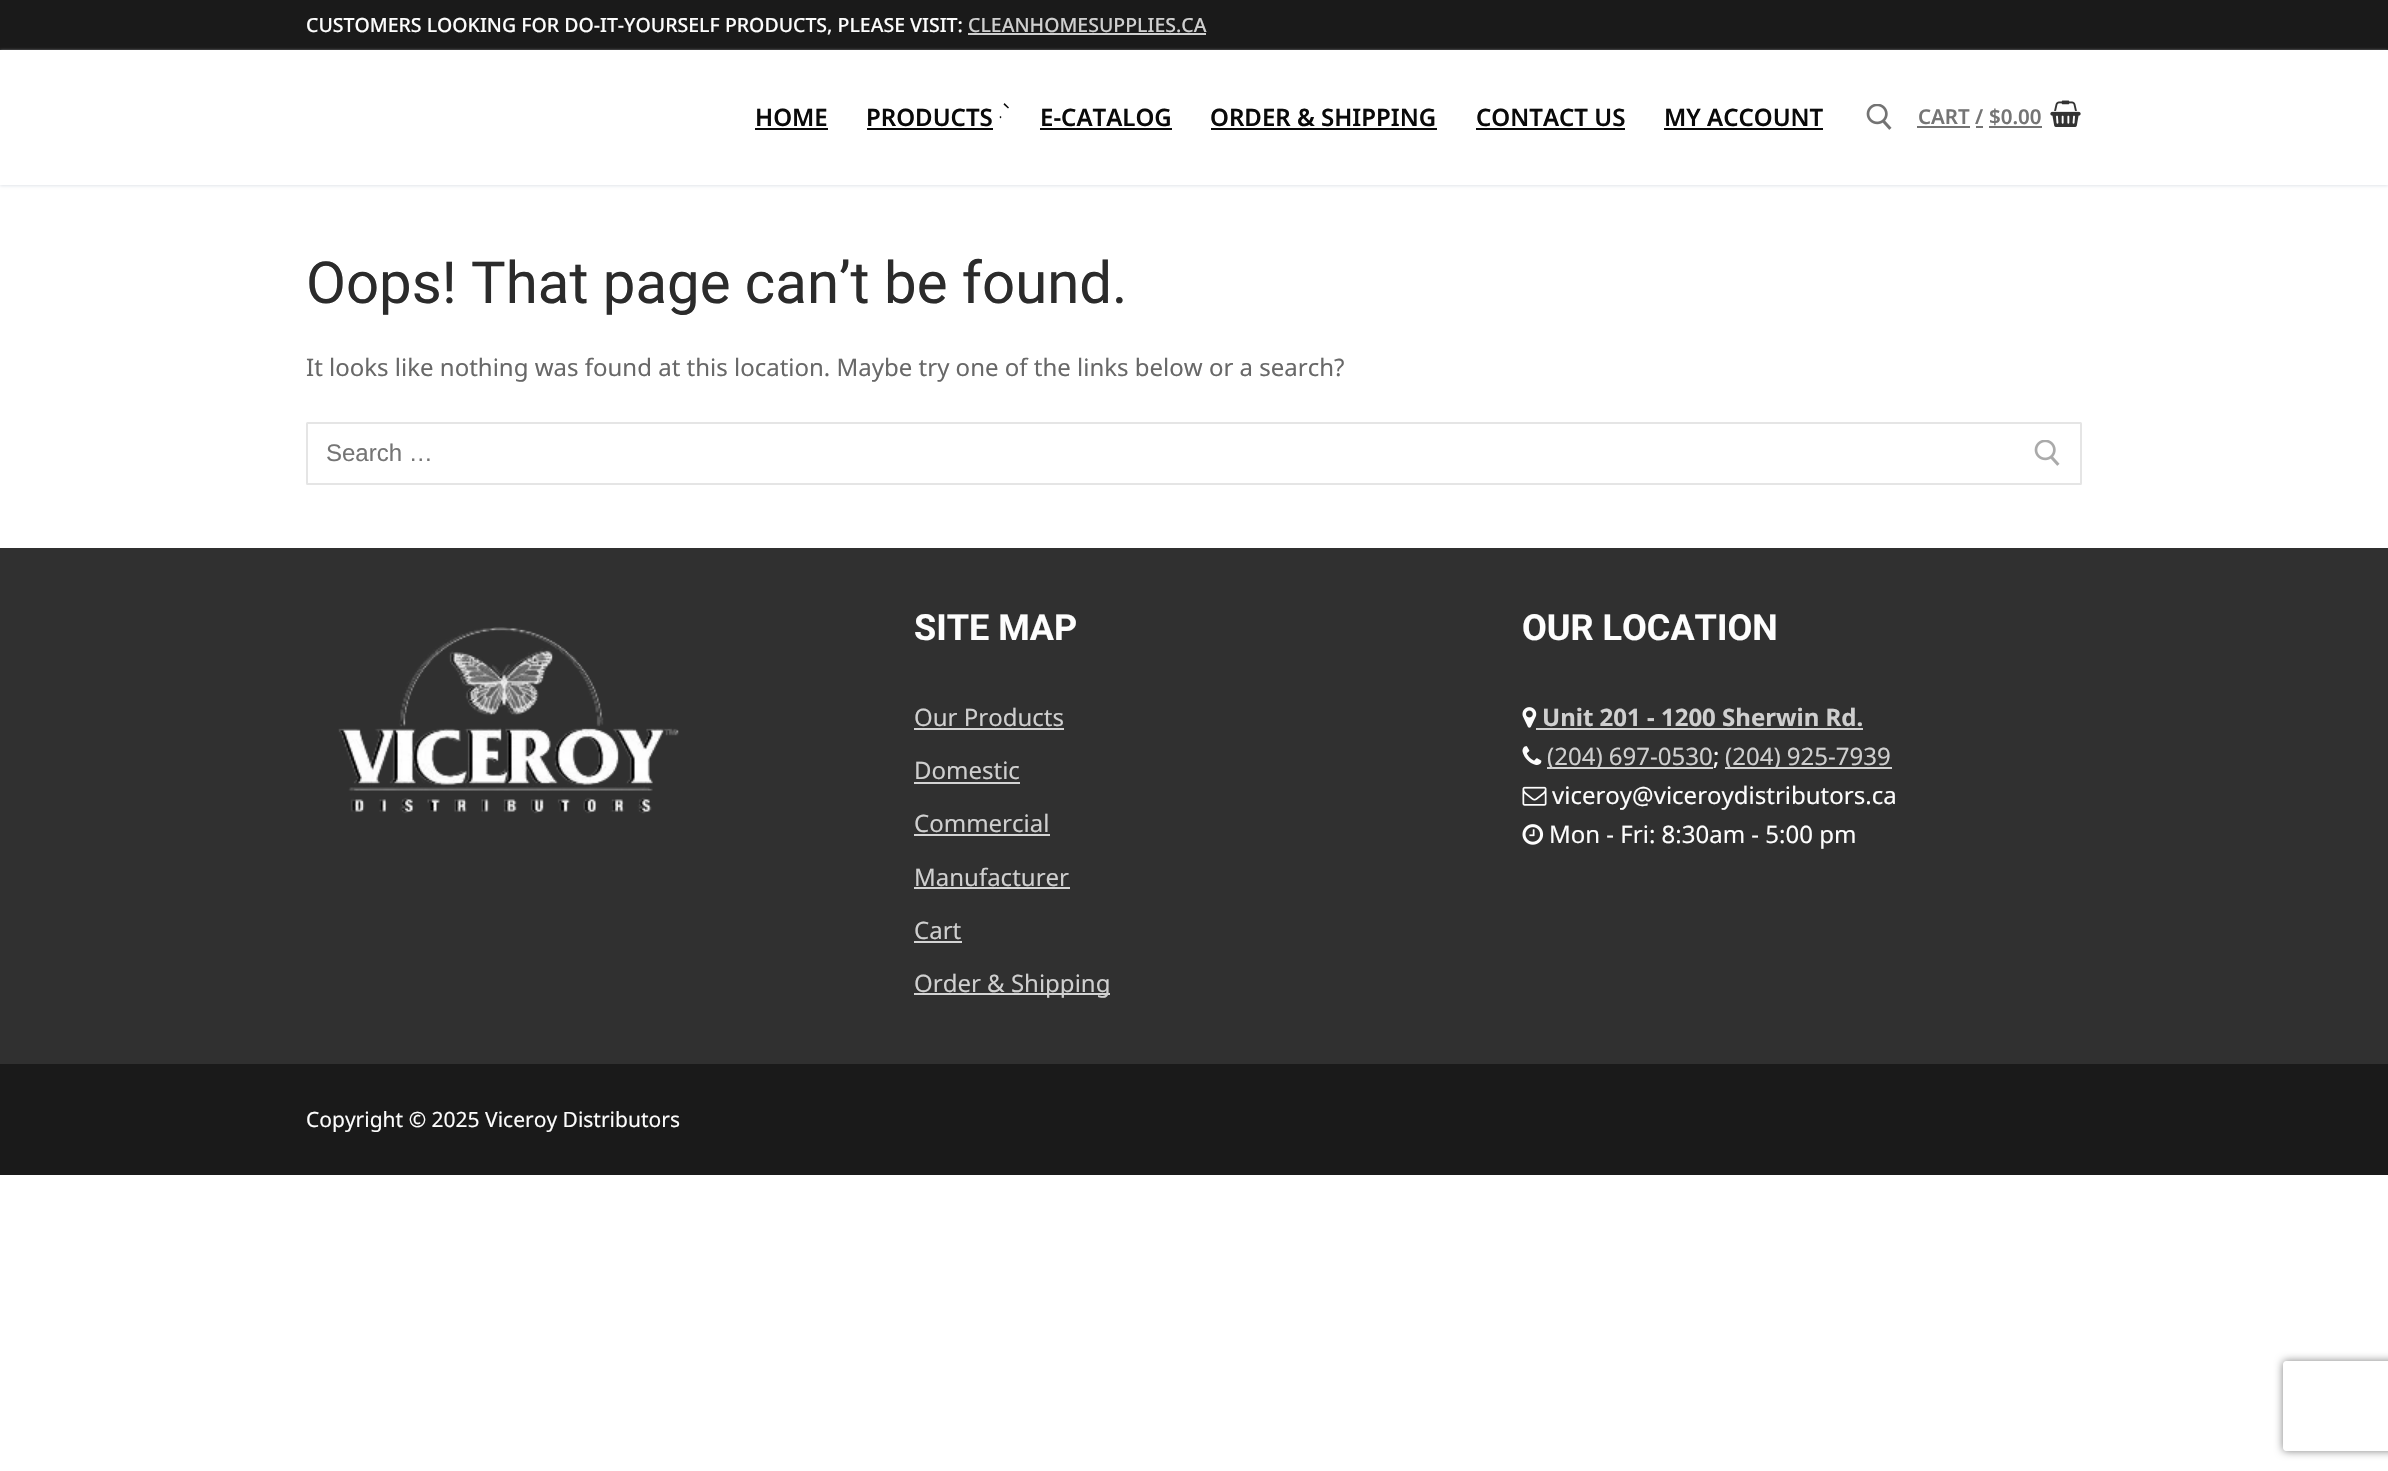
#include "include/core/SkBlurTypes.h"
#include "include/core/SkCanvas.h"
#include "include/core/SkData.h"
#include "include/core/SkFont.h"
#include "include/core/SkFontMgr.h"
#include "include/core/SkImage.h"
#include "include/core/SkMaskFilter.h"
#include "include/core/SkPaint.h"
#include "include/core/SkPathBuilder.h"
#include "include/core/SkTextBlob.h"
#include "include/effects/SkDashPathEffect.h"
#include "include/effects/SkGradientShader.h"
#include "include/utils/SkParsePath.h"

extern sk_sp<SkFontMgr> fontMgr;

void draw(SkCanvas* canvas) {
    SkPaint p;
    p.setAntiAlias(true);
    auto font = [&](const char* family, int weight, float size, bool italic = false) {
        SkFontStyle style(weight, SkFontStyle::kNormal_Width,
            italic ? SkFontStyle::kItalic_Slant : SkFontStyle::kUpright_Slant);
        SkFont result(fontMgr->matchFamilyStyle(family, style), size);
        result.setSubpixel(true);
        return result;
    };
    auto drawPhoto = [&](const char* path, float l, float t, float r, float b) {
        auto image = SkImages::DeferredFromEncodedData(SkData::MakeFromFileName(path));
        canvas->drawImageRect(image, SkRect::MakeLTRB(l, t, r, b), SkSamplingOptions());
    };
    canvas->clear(0xFFFFFFFF);
    p.setColor(0xFF1A1A1A);
    canvas->drawRect(SkRect::MakeLTRB(0, 0, 2388, 50), p);
    auto font1 = font("Noto Sans", 500, 19.5f);
    p.setColor(0xFFFDFDFD);
    canvas->drawString("CUSTOMERS LOOKING FOR DO-IT-YOURSELF PRODUCTS, PLEASE VISIT:", 306, 32, font1, p);
    p.setColor(0xFFCFCFCF);
    canvas->drawString("CLEANHOMESUPPLIES.CA", 968, 32, font1, p);
    canvas->drawRect(SkRect::MakeLTRB(968, 33, 1206, 35), p);
    p.setColor(0xFFE1E5EA);
    p.setMaskFilter(SkMaskFilter::MakeBlur(kNormal_SkBlurStyle, 1.5f));
    canvas->drawRect(SkRect::MakeLTRB(0, 51, 2388, 186), p);
    p.setMaskFilter(nullptr);
    p.setColor(0xFFFFFFFF);
    canvas->drawRect(SkRect::MakeLTRB(0, 50, 2388, 185), p);
    auto font2 = font("Noto Sans", 600, 24);
    p.setColor(0xFF0A0A0A);
    canvas->drawString("HOME", 755, 126, font2, p);
    canvas->drawRect(SkRect::MakeLTRB(755, 128, 828, 130), p);
    canvas->drawString("PRODUCTS", 866, 126, font2, p);
    canvas->drawRect(SkRect::MakeLTRB(867, 128, 993, 130), p);
    canvas->drawPath(SkPathBuilder().moveTo(1000.5f, 118.5f).lineTo(999.5f, 117).lineTo(1000.5f, 116).lineTo(1001.5f, 117).close().moveTo(1008, 108.5f).lineTo(1003.5f, 104.5f).lineTo(1004.5f, 103).lineTo(1009, 107.5f).close().detach(), p);
    canvas->drawString("E-CATALOG", 1040, 126, font2, p);
    canvas->drawRect(SkRect::MakeLTRB(1040, 128, 1172, 130), p);
    canvas->drawString("ORDER & SHIPPING", 1210, 126, font2, p);
    canvas->drawRect(SkRect::MakeLTRB(1211, 128, 1437, 130), p);
    canvas->drawString("CONTACT US", 1476, 126, font2, p);
    canvas->drawRect(SkRect::MakeLTRB(1476, 128, 1625, 130), p);
    canvas->drawString("MY ACCOUNT", 1664, 126, font2, p);
    canvas->drawRect(SkRect::MakeLTRB(1664, 128, 1823, 130), p);
    drawPhoto("media/1.png", 1866, 104, 1892, 130);
    auto font3 = font("Noto Sans", 600, 20.5f);
    p.setColor(0xFF757575);
    canvas->drawString("CART", 1918, 124, font3, p);
    p.setColor(0xFF737373);
    canvas->drawRect(SkRect::MakeLTRB(1917, 126, 1970, 128), p);
    p.setColor(0xFF757575);
    canvas->drawString("/", 1975, 124, font3, p);
    p.setColor(0xFF737373);
    canvas->drawRect(SkRect::MakeLTRB(1976, 126, 1983, 128), p);
    p.setColor(0xFF757575);
    canvas->drawString("$0.00", 1989, 124, font3, p);
    p.setColor(0xFF737373);
    canvas->drawRect(SkRect::MakeLTRB(1989, 126, 2042, 128), p);
    drawPhoto("media/2.png", 2050, 100, 2081, 127);
    auto font4 = font("Roboto", 400, 58.1f);
    p.setColor(0xFF2B2B2B);
    canvas->drawString("Oops! That page can’t be found.", 306, 303, font4, p);
    auto font5 = font("Noto Sans", 400, 24);
    p.setColor(0xFF686868);
    canvas->drawString("It looks like nothing was found at this location. Maybe try one of the links below or a search?", 306, 376, font5, p);
    p.setStyle(SkPaint::kStroke_Style);
    p.setStrokeWidth(2);
    p.setColor(0xFFE5E5E5);
    canvas->drawRoundRect(SkRect::MakeLTRB(307, 423, 2081, 484), 0.5f, 0.5f, p);
    auto font6 = font("Liberation Sans", 400, 24);
    p.setStyle(SkPaint::kFill_Style);
    p.setColor(0xFF757575);
    canvas->drawString("Search …", 326, 461, font6, p);
    drawPhoto("media/3.png", 2034, 440, 2060, 466);
    p.setColor(0xFF303030);
    canvas->drawRect(SkRect::MakeLTRB(0, 548, 2388, 1064), p);
    drawPhoto("media/4.png", 338, 627, 679, 814);
    auto font7 = font("Roboto", 700, 36);
    p.setColor(0xFFFDFDFD);
    canvas->drawString("SITE MAP", 914, 640, font7, p);
    p.setColor(0xFFCFCFCF);
    canvas->drawString("Our Products", 914, 726, font5, p);
    p.setColor(0xFFD4D4D4);
    canvas->drawRect(SkRect::MakeLTRB(914, 728, 1064, 730), p);
    p.setColor(0xFFCFCFCF);
    canvas->drawString("Domestic", 914, 779, font5, p);
    p.setColor(0xFFD4D4D4);
    canvas->drawRect(SkRect::MakeLTRB(914, 782, 1020, 784), p);
    p.setColor(0xFFCFCFCF);
    canvas->drawString("Commercial", 914, 832, font5, p);
    p.setColor(0xFFD4D4D4);
    canvas->drawRect(SkRect::MakeLTRB(914, 834, 1050, 836), p);
    p.setColor(0xFFCFCFCF);
    canvas->drawString("Manufacturer", 914, 886, font5, p);
    p.setColor(0xFFD4D4D4);
    canvas->drawRect(SkRect::MakeLTRB(914, 887, 1070, 889), p);
    p.setColor(0xFFCFCFCF);
    canvas->drawString("Cart", 914, 939, font5, p);
    p.setColor(0xFFD4D4D4);
    canvas->drawRect(SkRect::MakeLTRB(914, 941, 962, 943), p);
    canvas->drawRect(SkRect::MakeLTRB(914, 993, 1110, 995), p);
    p.setColor(0xFFCFCFCF);
    canvas->drawString("Order & Shipping", 914, 992, font5, p);
    p.setColor(0xFFFDFDFD);
    canvas->drawString("OUR LOCATION", 1522, 640, font7, p);
    drawPhoto("media/5.png", 1522, 707, 1537, 728);
    auto font8 = font("Noto Sans", 700, 24);
    p.setColor(0xFFCFCFCF);
    canvas->drawString("Unit 201 - 1200 Sherwin Rd.", 1542, 726, font8, p);
    p.setColor(0xFFD4D4D4);
    canvas->drawRect(SkRect::MakeLTRB(1536, 728, 1863, 730), p);
    drawPhoto("media/6.png", 1522, 746, 1542, 765);
    canvas->drawRect(SkRect::MakeLTRB(1547, 767, 1713, 769), p);
    p.setColor(0xFFCFCFCF);
    canvas->drawString("(204) 697-0530", 1547, 765, font5, p);
    p.setColor(0xFFFDFDFD);
    canvas->drawString(";", 1713, 765, font5, p);
    p.setColor(0xFFD4D4D4);
    canvas->drawRect(SkRect::MakeLTRB(1725, 767, 1892, 769), p);
    p.setColor(0xFFCFCFCF);
    canvas->drawString("(204) 925-7939", 1725, 765, font5, p);
    drawPhoto("media/7.png", 1522, 786, 1547, 806);
    p.setColor(0xFFFDFDFD);
    canvas->drawString("viceroy@viceroydistributors.ca", 1552, 804, font5, p);
    drawPhoto("media/8.png", 1522, 824, 1544, 845);
    canvas->drawString("Mon - Fri: 8:30am - 5:00 pm", 1549, 843, font5, p);
    p.setColor(0xFF1A1A1A);
    canvas->drawRect(SkRect::MakeLTRB(0, 1064, 2388, 1175), p);
    auto font9 = font("Noto Sans", 400, 21);
    p.setColor(0xFFFDFDFD);
    canvas->drawString("Copyright © 2025 Viceroy Distributors", 306, 1127, font9, p);
    canvas->save();
    canvas->clipPath(SkPathBuilder(SkPathFillType::kEvenOdd).moveTo(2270, 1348).lineTo(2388, 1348).lineTo(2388, 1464).lineTo(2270, 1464).close().moveTo(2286, 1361).lineTo(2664, 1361).cubicTo(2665.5f, 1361, 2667, 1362.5f, 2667, 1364).lineTo(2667, 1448).cubicTo(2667, 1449.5f, 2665.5f, 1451, 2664, 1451).lineTo(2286, 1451).cubicTo(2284.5f, 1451, 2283, 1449.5f, 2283, 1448).lineTo(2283, 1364).cubicTo(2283, 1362.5f, 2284.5f, 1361, 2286, 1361).close().detach(), true);
    p.setColor(0xFF808080);
    p.setMaskFilter(SkMaskFilter::MakeBlur(kNormal_SkBlurStyle, 4));
    canvas->drawRoundRect(SkRect::MakeLTRB(2283, 1361, 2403, 1451), 3, 3, p);
    p.setMaskFilter(nullptr);
    canvas->restore();
}
